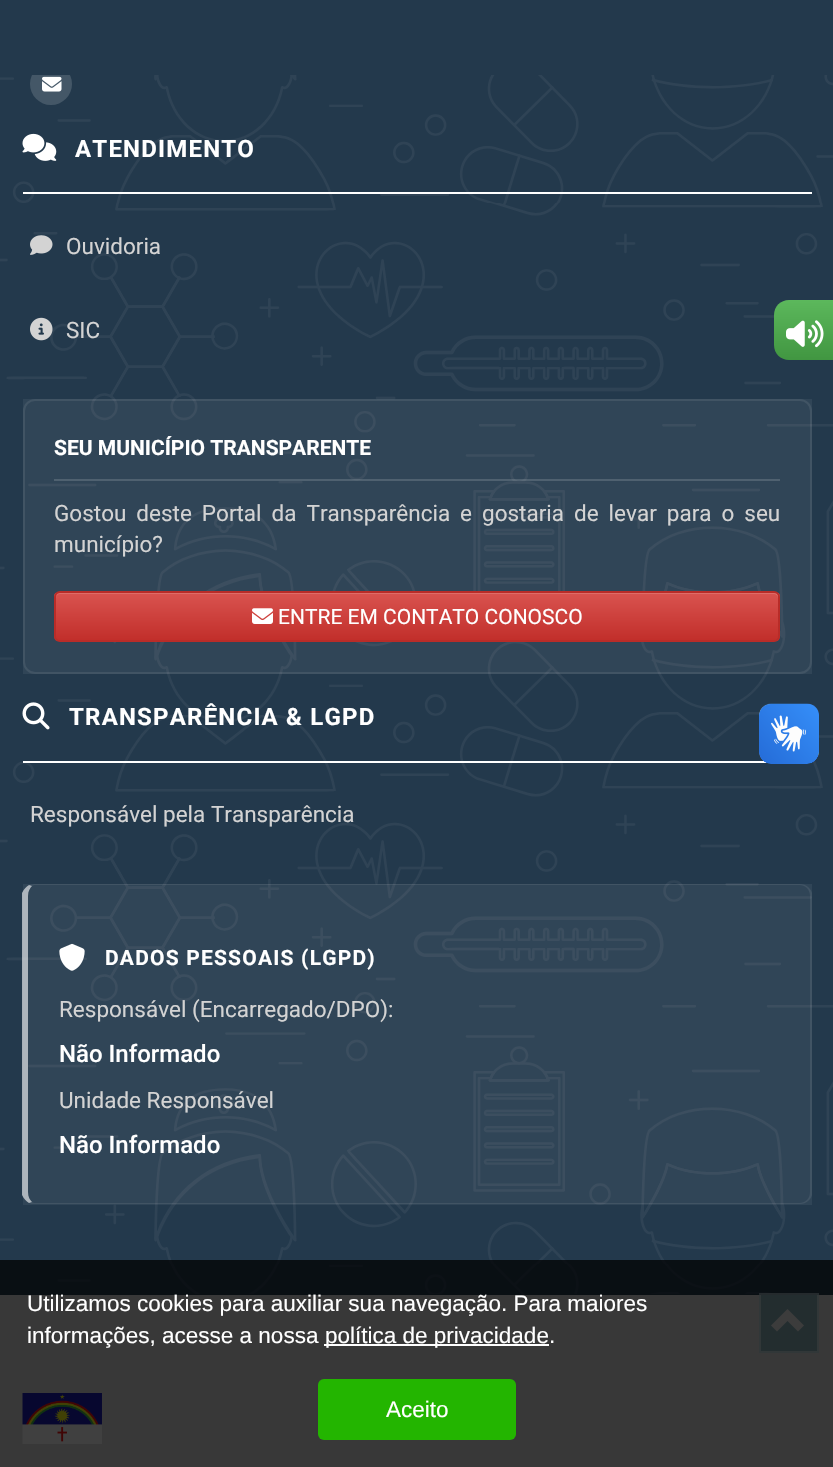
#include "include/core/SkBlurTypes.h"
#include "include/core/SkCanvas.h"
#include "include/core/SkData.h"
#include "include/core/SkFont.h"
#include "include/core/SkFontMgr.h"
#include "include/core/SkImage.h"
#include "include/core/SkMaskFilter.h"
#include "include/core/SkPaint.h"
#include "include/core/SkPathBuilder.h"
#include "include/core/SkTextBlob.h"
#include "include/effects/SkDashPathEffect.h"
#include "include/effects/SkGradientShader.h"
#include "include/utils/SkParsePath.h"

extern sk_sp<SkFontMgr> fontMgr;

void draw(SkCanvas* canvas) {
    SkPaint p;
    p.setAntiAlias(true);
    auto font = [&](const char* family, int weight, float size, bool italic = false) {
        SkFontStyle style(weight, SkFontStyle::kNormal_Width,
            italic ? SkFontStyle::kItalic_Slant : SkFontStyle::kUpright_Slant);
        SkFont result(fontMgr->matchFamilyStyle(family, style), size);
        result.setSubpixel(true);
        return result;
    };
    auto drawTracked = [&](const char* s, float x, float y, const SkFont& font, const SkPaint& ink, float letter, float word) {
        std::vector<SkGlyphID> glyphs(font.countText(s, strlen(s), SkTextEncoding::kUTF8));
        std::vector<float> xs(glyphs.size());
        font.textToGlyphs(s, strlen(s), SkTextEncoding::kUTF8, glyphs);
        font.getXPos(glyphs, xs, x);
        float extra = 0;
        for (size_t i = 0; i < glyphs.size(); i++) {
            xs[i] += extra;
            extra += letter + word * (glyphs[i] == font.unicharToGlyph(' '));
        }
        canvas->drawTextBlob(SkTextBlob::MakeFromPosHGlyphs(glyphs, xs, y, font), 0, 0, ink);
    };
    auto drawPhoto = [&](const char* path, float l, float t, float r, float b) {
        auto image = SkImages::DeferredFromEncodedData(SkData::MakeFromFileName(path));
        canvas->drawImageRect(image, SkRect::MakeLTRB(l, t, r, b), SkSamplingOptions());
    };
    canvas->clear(0xFF23394C);
    drawPhoto("media/1.png", 0, 75, 833, 1294);
    p.setColor(0xFF445767);
    canvas->drawCircle(51, 84, 21, p);
    p.setColor(0xFF23394C);
    canvas->drawRect(SkRect::MakeLTRB(32, 63, 70, 75), p);
    drawPhoto("media/2.png", 42, 76, 62, 92);
    p.setColor(0xFFFFFFFF);
    canvas->drawRect(SkRect::MakeLTRB(23, 192, 812, 194), p);
    drawPhoto("media/3.png", 22, 133, 57, 161);
    auto font1 = font("Roboto", 700, 24);
    drawTracked("ATENDIMENTO", 75, 157, font1, p, 1.2f, 0);
    drawPhoto("media/4.png", 30, 235, 53, 255);
    auto font2 = font("Roboto", 400, 22.5f);
    p.setColor(0xFFD3D3D3);
    canvas->drawString("Ouvidoria", 66, 254, font2, p);
    drawPhoto("media/5.png", 30, 317, 53, 341);
    canvas->drawString("SIC", 66, 338, font2, p);
    p.setColor(0x0FFFFFFF);
    canvas->drawRect(SkRect::MakeLTRB(23, 399, 812, 674), p);
    p.setStyle(SkPaint::kStroke_Style);
    p.setStrokeWidth(2);
    p.setColor(0x14FFFFFF);
    canvas->drawRoundRect(SkRect::MakeLTRB(24, 400, 811, 673), 11, 11, p);
    p.setStyle(SkPaint::kFill_Style);
    p.setColor(0x26FFFFFF);
    canvas->drawRect(SkRect::MakeLTRB(54, 479, 780, 481), p);
    auto font3 = font("Roboto", 700, 21);
    p.setColor(0xFFFFFFFF);
    canvas->drawString("SEU MUNICÍPIO TRANSPARENTE", 54, 455, font3, p);
    p.setColor(0xFFD3D3D3);
    drawTracked("Gostou deste Portal da Transparência e gostaria de levar para o seu", 54, 521, font2, p, 0, 4.4f);
    canvas->drawString("município?", 54, 552, font2, p);
    canvas->save();
    canvas->clipPath(SkPathBuilder().moveTo(60, 591).lineTo(774, 591).cubicTo(777.5f, 591, 780, 593.5f, 780, 597).lineTo(780, 636).cubicTo(780, 639.5f, 777.5f, 642, 774, 642).lineTo(60, 642).cubicTo(56.5f, 642, 54, 639.5f, 54, 636).lineTo(54, 597).cubicTo(54, 593.5f, 56.5f, 591, 60, 591).close().detach(), true);
    {
        const SkColor colors[] = {0xFFD9534F, 0xFFC12E2A};
        const float stops[] = {0, 1};
        const SkPoint ends[] = {{417, 593}, {417, 641}};
        p.setShader(SkGradientShader::MakeLinear(ends, colors, stops, 2, SkTileMode::kClamp));
        p.setAlpha(255);
    }
    canvas->drawRect(SkRect::MakeLTRB(54, 593, 780, 641), p);
    canvas->restore();
    p.setShader(nullptr);
    p.setColor(0x26FFFFFF);
    canvas->drawPath(SkPathBuilder().moveTo(60, 594).lineTo(774, 594).cubicTo(776, 594, 778, 596, 778, 598).lineTo(778, 639).cubicTo(779, 638, 779, 637, 779, 636).lineTo(779, 598).cubicTo(779, 595, 777, 593, 774, 593).lineTo(61, 593).cubicTo(58, 593, 56, 595, 56, 598).cubicTo(56, 596, 58, 594, 60, 594).close().detach(), p);
    p.setStyle(SkPaint::kStroke_Style);
    p.setColor(0xFFB92C28);
    canvas->drawRoundRect(SkRect::MakeLTRB(55, 592, 779, 641), 5, 5, p);
    drawPhoto("media/6.png", 252, 608, 273, 624);
    auto font4 = font("Roboto", 400, 21);
    p.setStyle(SkPaint::kFill_Style);
    p.setColor(0xFFFFFFFF);
    canvas->drawString("ENTRE EM CONTATO CONOSCO", 278, 624, font4, p);
    canvas->drawRect(SkRect::MakeLTRB(23, 761, 812, 763), p);
    drawPhoto("media/7.png", 22, 702, 50, 730);
    drawTracked("TRANSPARÊNCIA & LGPD", 69, 725, font1, p, 1.2f, 0);
    p.setColor(0xFFD3D3D3);
    canvas->drawString("Responsável pela Transparência", 30, 822, font2, p);
    p.setColor(0x0FFFFFFF);
    canvas->drawRect(SkRect::MakeLTRB(23, 884, 812, 1205), p);
    p.setColor(0x14FFFFFF);
    canvas->drawPath(SkPathBuilder().moveTo(34, 884).lineTo(29, 885).lineTo(32, 886).lineTo(34, 885).lineTo(800, 885).cubicTo(802, 885, 805, 886, 807, 888).lineTo(808, 887).cubicTo(806, 885, 803, 884, 800, 884).close().detach(), p);
    canvas->drawPath(SkPathBuilder().moveTo(808, 887).cubicTo(810, 889, 811, 890, 812, 893).lineTo(812, 1195).cubicTo(811, 1198, 810, 1199, 808, 1201).lineTo(807, 1200).cubicTo(809, 1198, 810, 1195, 810, 1192).lineTo(810, 896).cubicTo(810, 893, 809, 890, 807, 888).close().detach(), p);
    canvas->drawPath(SkPathBuilder().moveTo(808, 1201).cubicTo(806, 1203, 803, 1204, 800, 1204).lineTo(34, 1204).cubicTo(32, 1204, 31, 1204, 29, 1203).lineTo(32, 1202).lineTo(34, 1203).lineTo(800, 1203).cubicTo(802, 1203, 805, 1202, 807, 1200).close().detach(), p);
    p.setColor(0x99FFFFFF);
    canvas->drawPath(SkPathBuilder().moveTo(22, 893).cubicTo(24, 889, 26, 887, 29, 885).lineTo(32, 886).cubicTo(30, 888, 28, 891, 28, 896).lineTo(28, 1192).cubicTo(28, 1197, 30, 1200, 32, 1202).lineTo(29, 1203).cubicTo(26, 1201, 24, 1199, 22, 1195).close().detach(), p);
    drawPhoto("media/8.png", 59, 943, 85, 971);
    p.setColor(0xFFFFFFFF);
    drawTracked("DADOS PESSOAIS (LGPD)", 105, 965, font3, p, 1.2f, 0);
    p.setColor(0xFFD3D3D3);
    canvas->drawString("Responsável (Encarregado/DPO):", 59, 1017, font2, p);
    auto font5 = font("Roboto", 500, 24);
    p.setColor(0xFFFFFFFF);
    canvas->drawString("Não Informado", 59, 1062, font5, p);
    p.setColor(0xFFD3D3D3);
    canvas->drawString("Unidade Responsável", 59, 1108, font2, p);
    p.setColor(0xFFFFFFFF);
    canvas->drawString("Não Informado", 59, 1153, font5, p);
    {
        const SkColor colors[] = {0xFF5CB85C, 0xFF419641};
        const float stops[] = {0, 1};
        const SkPoint ends[] = {{804, 300}, {804, 360}};
        p.setShader(SkGradientShader::MakeLinear(ends, colors, stops, 2, SkTileMode::kClamp));
        p.setAlpha(255);
    }
    canvas->drawPath(SkPathBuilder().moveTo(789, 300).lineTo(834, 300).lineTo(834, 360).lineTo(789, 360).cubicTo(780.5f, 360, 774, 353.5f, 774, 345).lineTo(774, 315).cubicTo(774, 306.5f, 780.5f, 300, 789, 300).close().detach(), p);
    drawPhoto("media/9.png", 786, 320, 824, 348);
    p.setShader(nullptr);
    p.setColor(0xFFDDDDDD);
    canvas->drawRect(SkRect::MakeLTRB(0, 1295, 833, 1467), p);
    p.setColor(0x66097189);
    canvas->drawRect(SkRect::MakeLTRB(759, 1293, 819, 1353), p);
    p.setStyle(SkPaint::kStroke_Style);
    p.setColor(0x80FFFFFF);
    canvas->drawRect(SkRect::MakeLTRB(760, 1294, 818, 1352), p);
    p.setStyle(SkPaint::kFill_Style);
    p.setColor(0xFFEEEEEE);
    canvas->drawPath(SkPathBuilder().moveTo(804, 1325.5f).lineTo(798, 1331.5f).lineTo(787.5f, 1321).lineTo(777, 1331.5f).lineTo(771, 1325.5f).lineTo(787.5f, 1309).close().detach(), p);
    drawPhoto("media/10.png", 22, 1393, 102, 1444);
    drawPhoto("media/11.png", 759, 703, 819, 764);
    drawPhoto("media/12.png", 759, 704, 819, 764);
    p.setColor(0xBF000000);
    canvas->drawRect(SkRect::MakeLTRB(0, 1260, 833, 1467), p);
    auto font6 = font("Liberation Sans", 400, 22.5f);
    p.setColor(0xFFFFFFFF);
    canvas->drawString("Utilizamos cookies para auxiliar sua navegação. Para maiores", 27, 1311, font6, p);
    canvas->drawString("informações, acesse a nossa", 27, 1343, font6, p);
    canvas->drawRect(SkRect::MakeLTRB(324, 1344, 549, 1346), p);
    canvas->drawString("política de privacidade.", 325, 1343, font6, p);
    p.setColor(0xFF23B500);
    canvas->drawRoundRect(SkRect::MakeLTRB(318, 1379, 516, 1440), 6, 6, p);
    p.setColor(0xFFFFFFFF);
    canvas->drawString("Aceito", 386, 1417, font6, p);
}
